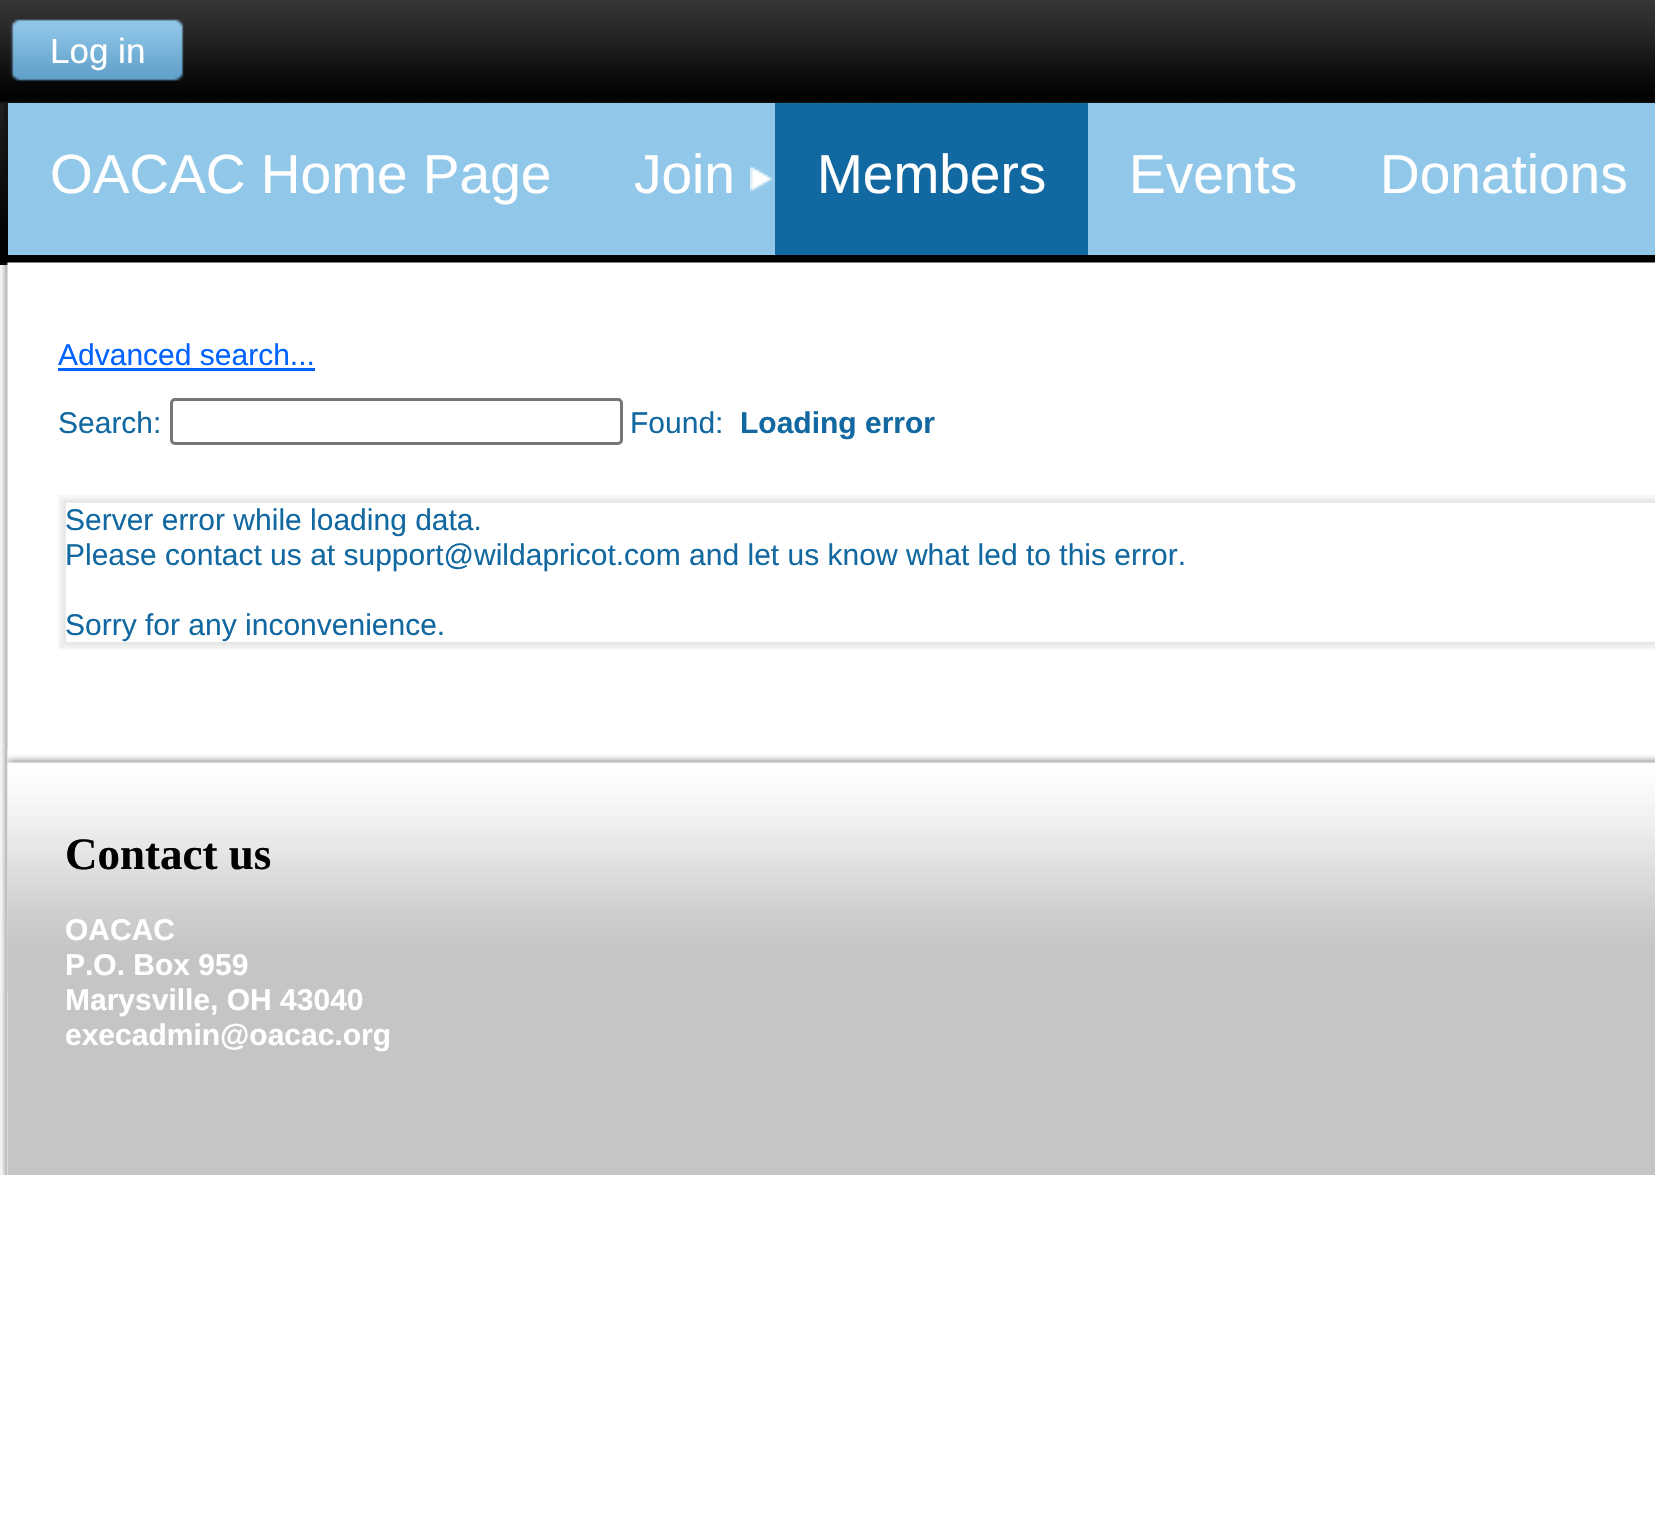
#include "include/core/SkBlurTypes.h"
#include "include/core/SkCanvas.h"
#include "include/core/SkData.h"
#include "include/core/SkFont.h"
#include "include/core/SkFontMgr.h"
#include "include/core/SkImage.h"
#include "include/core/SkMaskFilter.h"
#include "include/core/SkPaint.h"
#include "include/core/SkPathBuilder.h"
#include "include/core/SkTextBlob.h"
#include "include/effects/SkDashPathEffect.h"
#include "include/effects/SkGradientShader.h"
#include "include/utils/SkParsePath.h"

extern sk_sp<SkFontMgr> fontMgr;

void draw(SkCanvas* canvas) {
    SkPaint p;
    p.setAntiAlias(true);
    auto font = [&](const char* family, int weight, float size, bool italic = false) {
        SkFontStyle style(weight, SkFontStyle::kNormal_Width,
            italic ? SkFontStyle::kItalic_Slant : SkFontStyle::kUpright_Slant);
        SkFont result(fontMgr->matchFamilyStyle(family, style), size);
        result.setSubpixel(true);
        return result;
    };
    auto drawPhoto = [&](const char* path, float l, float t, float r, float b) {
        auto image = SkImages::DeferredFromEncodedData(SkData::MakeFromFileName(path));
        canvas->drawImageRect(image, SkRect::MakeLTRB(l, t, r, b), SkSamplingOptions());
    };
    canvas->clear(0xFFFFFFFF);
    drawPhoto("media/1.png", 0, 102, 1655, 265);
    drawPhoto("media/2.png", 0, 0, 1655, 103);
    drawPhoto("media/3.png", 9, 19, 184, 81);
    auto font1 = font("Liberation Sans", 400, 35);
    p.setColor(0xFFFFFFFF);
    canvas->drawString("Log in", 50, 63, font1, p);
    drawPhoto("media/4.png", 3, 103, 8, 175);
    p.setColor(0xFF91C7E9);
    canvas->drawRect(SkRect::MakeLTRB(8, 103, 1655, 255), p);
    auto font2 = font("Liberation Sans", 400, 55);
    p.setColor(0xFFFFFFFF);
    canvas->drawString("OACAC Home Page", 50, 193, font2, p);
    drawPhoto("media/5.png", 750, 165, 773, 193);
    canvas->drawString("Join", 634, 193, font2, p);
    p.setColor(0xFF1268A0);
    canvas->drawRect(SkRect::MakeLTRB(775, 103, 1088, 255), p);
    p.setColor(0xFFFFFFFF);
    {
        const struct { const char* s; float x, y; } items[] = {
            {"Members", 817, 193},
            {"Events", 1129, 193},
            {"Donations", 1380, 193},
        };
        for (auto [s, x, y] : items) {
            canvas->drawString(s, x, y, font2, p);
        }
    }
    drawPhoto("media/6.png", 0, 262, 1655, 750);
    canvas->drawRect(SkRect::MakeLTRB(8, 263, 9, 750), p);
    auto font3 = font("Liberation Sans", 400, 30);
    p.setColor(0xFF0063FF);
    canvas->drawString("Advanced search...", 58, 365, font3, p);
    canvas->drawRect(SkRect::MakeLTRB(58, 368, 315, 371), p);
    p.setColor(0xFF1268A0);
    canvas->drawString("Search:", 58, 433, font3, p);
    p.setStyle(SkPaint::kStroke_Style);
    p.setStrokeWidth(3);
    p.setColor(0xFF767676);
    canvas->drawRoundRect(SkRect::MakeLTRB(171.5f, 399.5f, 621.5f, 443.5f), 3.5f, 3.5f, p);
    p.setStyle(SkPaint::kFill_Style);
    p.setColor(0xFF1268A0);
    canvas->drawString("Found:", 630, 433, font3, p);
    auto font4 = font("Liberation Sans", 700, 30);
    canvas->drawString("Loading error", 740, 433, font4, p);
    p.setStyle(SkPaint::kStroke_Style);
    p.setColor(0xFFF7F7F7);
    canvas->drawRect(SkRect::MakeLTRB(59.5f, 496.5f, 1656.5f, 648.5f), p);
    p.setColor(0xFFF0F0F0);
    canvas->drawRect(SkRect::MakeLTRB(61.5f, 499.5f, 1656.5f, 646.5f), p);
    p.setColor(0xFFE8E8E8);
    canvas->drawRect(SkRect::MakeLTRB(64.5f, 501.5f, 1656.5f, 643.5f), p);
    p.setStyle(SkPaint::kFill_Style);
    p.setColor(0xFF1268A0);
    {
        const struct { const char* s; float x, y; } items[] = {
            {"Server error while loading data.", 65, 530},
            {"Please contact us at support@wildapricot.com and let us know what led to this error.", 65, 565},
            {"Sorry for any inconvenience.", 65, 635},
        };
        for (auto [s, x, y] : items) {
            canvas->drawString(s, x, y, font3, p);
        }
    }
    drawPhoto("media/7.png", 0, 750, 8, 1175);
    p.setColor(0xFFC5C5C5);
    canvas->drawRect(SkRect::MakeLTRB(8, 992, 1655, 1175), p);
    drawPhoto("media/8.png", 7, 750, 1655, 993);
    auto font5 = font("Liberation Serif", 700, 45);
    p.setColor(0xFF000000);
    canvas->drawString("Contact us", 65, 869, font5, p);
    p.setColor(0xFFFFFFFF);
    {
        const struct { const char* s; float x, y; } items[] = {
            {"OACAC", 65, 940},
            {"P.O. Box 959", 65, 975},
            {"Marysville, OH 43040", 65, 1010},
            {"execadmin@oacac.org", 65, 1045},
        };
        for (auto [s, x, y] : items) {
            canvas->drawString(s, x, y, font4, p);
        }
    }
}
